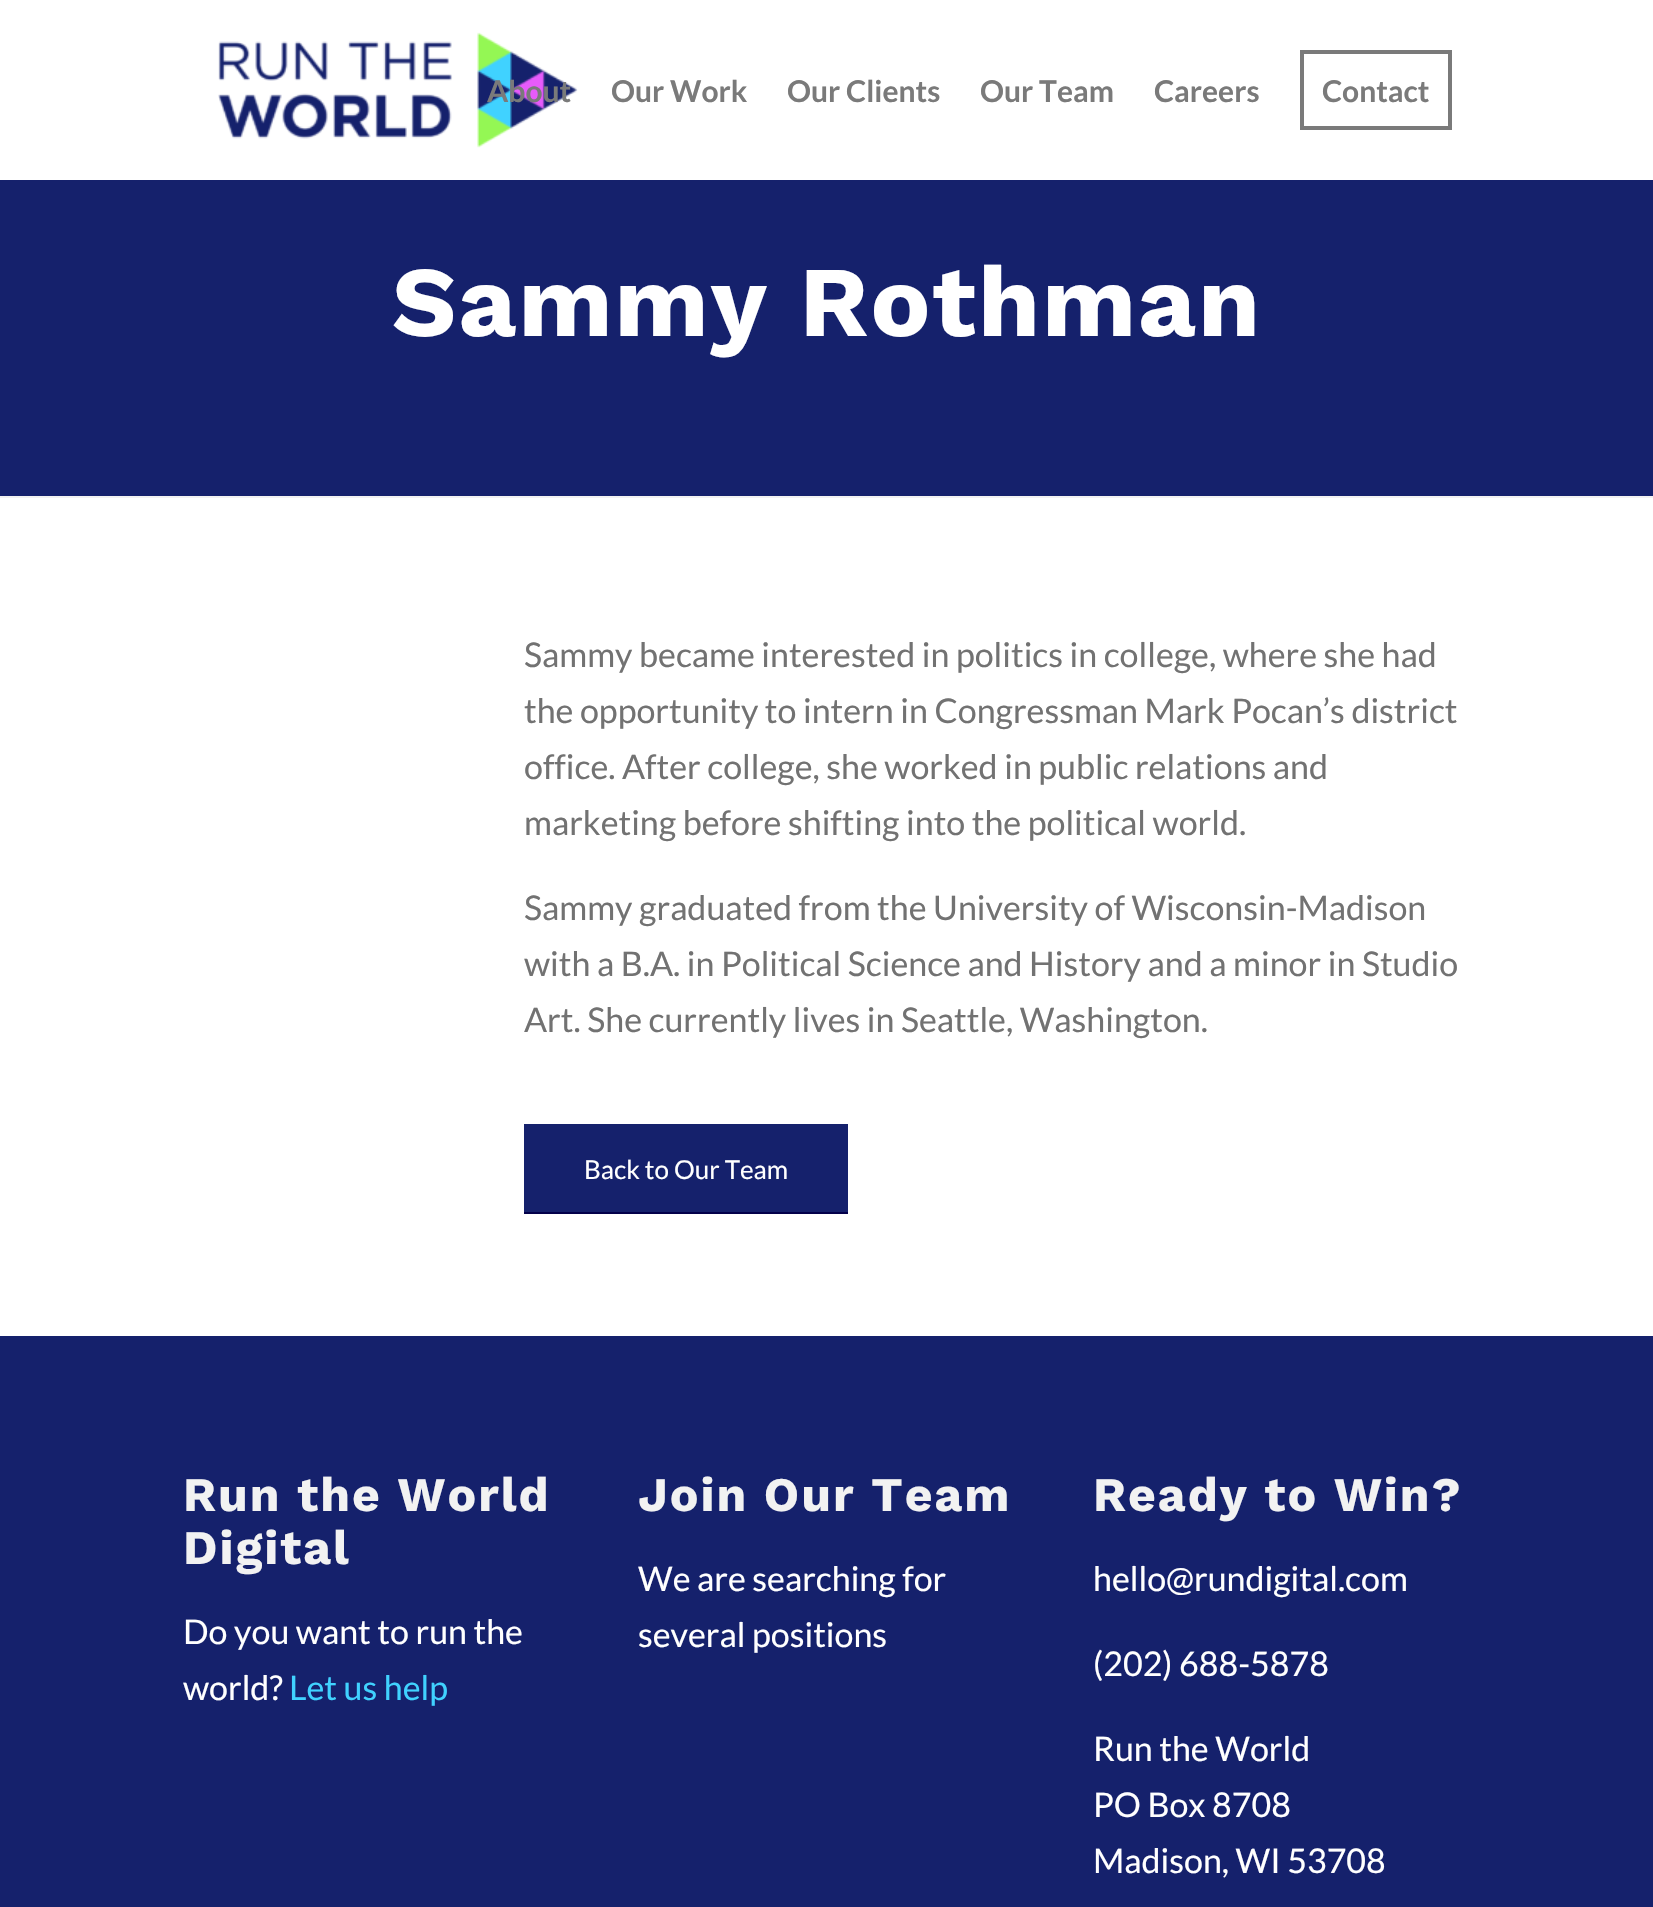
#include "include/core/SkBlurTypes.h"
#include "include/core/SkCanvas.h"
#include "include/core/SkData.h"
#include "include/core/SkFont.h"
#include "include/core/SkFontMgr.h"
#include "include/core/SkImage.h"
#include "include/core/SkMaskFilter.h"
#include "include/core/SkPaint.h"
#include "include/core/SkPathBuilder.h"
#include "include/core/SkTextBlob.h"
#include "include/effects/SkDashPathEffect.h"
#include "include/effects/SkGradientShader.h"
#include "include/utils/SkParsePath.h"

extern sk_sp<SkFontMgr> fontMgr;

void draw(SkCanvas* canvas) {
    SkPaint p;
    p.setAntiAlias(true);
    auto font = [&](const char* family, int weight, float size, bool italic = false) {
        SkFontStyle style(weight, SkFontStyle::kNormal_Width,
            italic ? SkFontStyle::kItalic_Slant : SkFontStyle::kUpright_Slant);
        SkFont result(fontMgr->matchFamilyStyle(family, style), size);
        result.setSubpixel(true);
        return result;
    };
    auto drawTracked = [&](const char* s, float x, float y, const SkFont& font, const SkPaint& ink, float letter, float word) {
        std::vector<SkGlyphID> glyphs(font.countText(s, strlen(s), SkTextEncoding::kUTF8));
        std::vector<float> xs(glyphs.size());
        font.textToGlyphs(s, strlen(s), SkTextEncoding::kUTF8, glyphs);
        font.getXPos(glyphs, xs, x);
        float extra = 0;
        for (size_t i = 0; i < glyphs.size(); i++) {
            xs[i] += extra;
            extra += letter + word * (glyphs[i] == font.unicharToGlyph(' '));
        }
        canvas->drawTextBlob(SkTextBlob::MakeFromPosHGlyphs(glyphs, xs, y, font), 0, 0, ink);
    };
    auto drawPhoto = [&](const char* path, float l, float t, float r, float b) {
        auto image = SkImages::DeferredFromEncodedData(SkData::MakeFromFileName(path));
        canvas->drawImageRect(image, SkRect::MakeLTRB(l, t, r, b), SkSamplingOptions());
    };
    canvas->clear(0xFFFFFFFF);
    drawPhoto("media/1.png", 218, 32, 578, 148);
    auto font1 = font("Lato", 700, 30);
    p.setColor(0xFF7A7A7A);
    {
        const struct { const char* s; float x, y; } items[] = {
            {"About", 487, 102},
            {"Our Work", 611, 102},
            {"Our Clients", 787, 102},
            {"Our Team", 980, 102},
            {"Careers", 1154, 102},
        };
        for (auto [s, x, y] : items) {
            canvas->drawString(s, x, y, font1, p);
        }
    }
    p.setStyle(SkPaint::kStroke_Style);
    p.setStrokeWidth(4);
    canvas->drawRect(SkRect::MakeLTRB(1302, 52, 1450, 128), p);
    p.setStyle(SkPaint::kFill_Style);
    canvas->drawString("Contact", 1322, 102, font1, p);
    p.setColor(0xFF15216C);
    canvas->drawRect(SkRect::MakeLTRB(0, 180, 1653, 496), p);
    auto font2 = font("Work Sans", 700, 100);
    p.setColor(0xFFFFFFFF);
    drawTracked("Sammy Rothman", 392, 336, font2, p, 2, 0);
    p.setColor(0xFFF2F2F2);
    canvas->drawRect(SkRect::MakeLTRB(0, 496, 1653, 498), p);
    auto font3 = font("Lato", 400, 34);
    p.setColor(0xFF727272);
    {
        const struct { const char* s; float x, y; } items[] = {
            {"Sammy became interested in politics in college, where she had", 524, 667},
            {"the opportunity to intern in Congressman Mark Pocan’s district", 524, 723},
            {"office. After college, she worked in public relations and", 524, 779},
            {"marketing before shifting into the political world.", 524, 835},
            {"Sammy graduated from the University of Wisconsin-Madison", 524, 920},
            {"with a B.A. in Political Science and History and a minor in Studio", 524, 976},
            {"Art. She currently lives in Seattle, Washington.", 524, 1032},
        };
        for (auto [s, x, y] : items) {
            canvas->drawString(s, x, y, font3, p);
        }
    }
    p.setColor(0xFF15216C);
    canvas->drawRect(SkRect::MakeLTRB(524, 1124, 848, 1212), p);
    p.setColor(0xFF03004A);
    canvas->drawRect(SkRect::MakeLTRB(524, 1212, 848, 1214), p);
    auto font4 = font("Lato", 400, 26);
    p.setColor(0xFFFFFFFF);
    canvas->drawString("Back to Our Team", 584, 1179, font4, p);
    p.setColor(0xFF15216C);
    canvas->drawRect(SkRect::MakeLTRB(0, 1336, 1653, 1907), p);
    auto font5 = font("Work Sans", 700, 48);
    p.setColor(0xFFF2F2F2);
    drawTracked("Run the World", 183, 1511, font5, p, 2, 0);
    drawTracked("Digital", 183, 1564, font5, p, 2, 0);
    p.setColor(0xFFFFFFFF);
    canvas->drawString("Do you want to run the", 183, 1644, font3, p);
    canvas->drawString("world?", 183, 1700, font3, p);
    p.setColor(0xFF40D2FF);
    canvas->drawString("Let us help", 289, 1700, font3, p);
    p.setColor(0xFFF2F2F2);
    drawTracked("Join Our Team", 638, 1511, font5, p, 2, 0);
    p.setColor(0xFFFFFFFF);
    canvas->drawString("We are searching for", 638, 1591, font3, p);
    canvas->drawString("several positions", 638, 1647, font3, p);
    p.setColor(0xFFF2F2F2);
    drawTracked("Ready to Win?", 1093, 1511, font5, p, 2, 0);
    p.setColor(0xFFFFFFFF);
    {
        const struct { const char* s; float x, y; } items[] = {
            {"hello@rundigital.com", 1093, 1591},
            {"(202) 688-5878", 1093, 1676},
            {"Run the World", 1093, 1761},
            {"PO Box 8708", 1093, 1817},
            {"Madison, WI 53708", 1093, 1873},
        };
        for (auto [s, x, y] : items) {
            canvas->drawString(s, x, y, font3, p);
        }
    }
}
